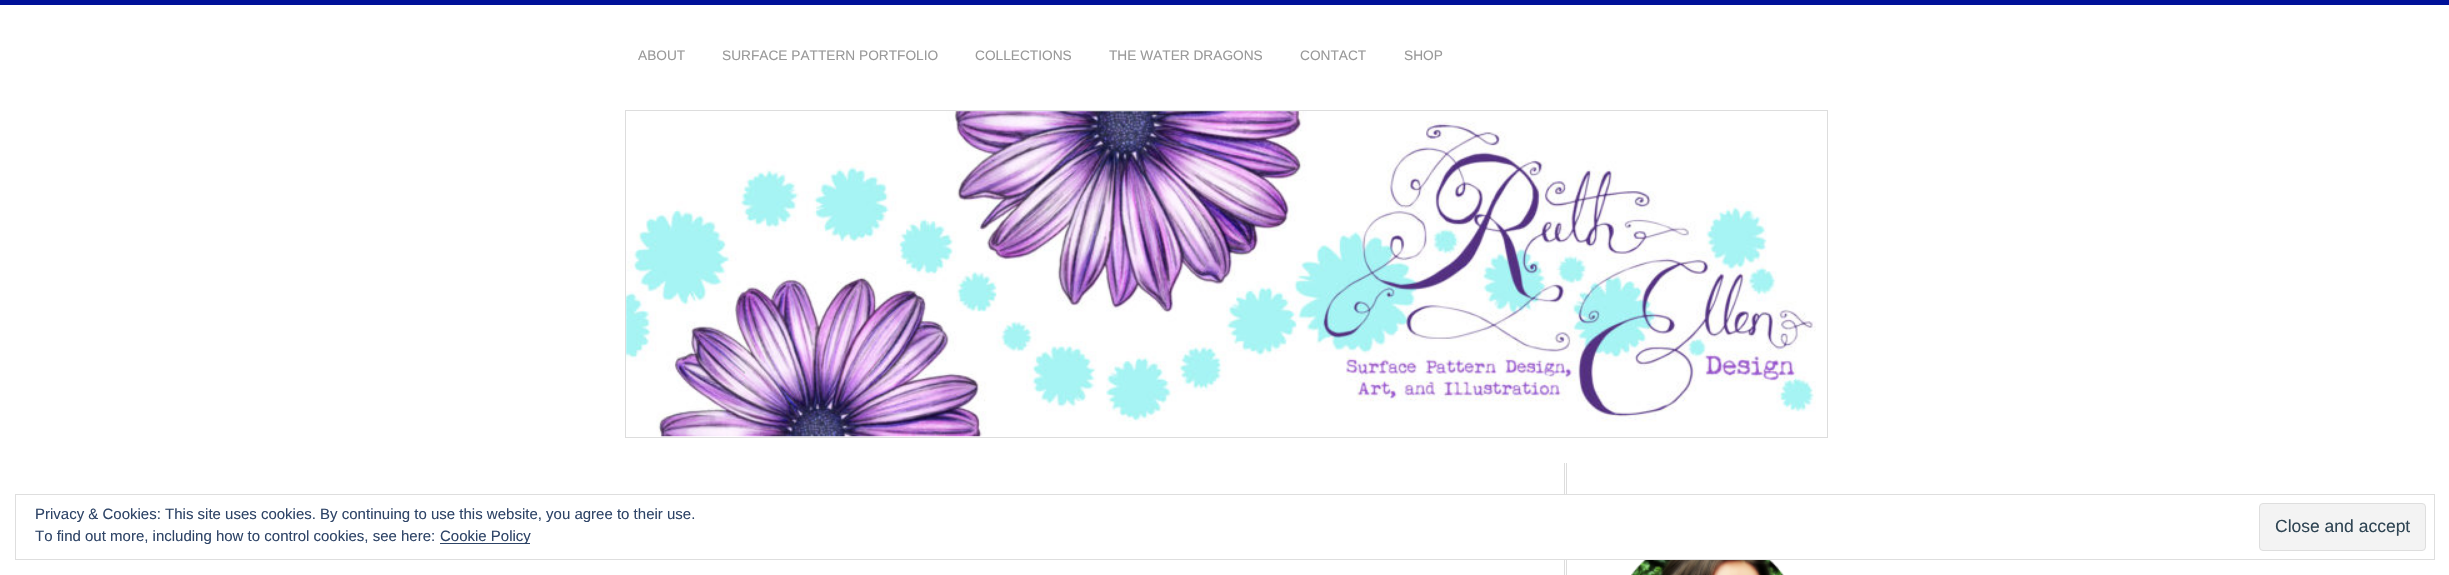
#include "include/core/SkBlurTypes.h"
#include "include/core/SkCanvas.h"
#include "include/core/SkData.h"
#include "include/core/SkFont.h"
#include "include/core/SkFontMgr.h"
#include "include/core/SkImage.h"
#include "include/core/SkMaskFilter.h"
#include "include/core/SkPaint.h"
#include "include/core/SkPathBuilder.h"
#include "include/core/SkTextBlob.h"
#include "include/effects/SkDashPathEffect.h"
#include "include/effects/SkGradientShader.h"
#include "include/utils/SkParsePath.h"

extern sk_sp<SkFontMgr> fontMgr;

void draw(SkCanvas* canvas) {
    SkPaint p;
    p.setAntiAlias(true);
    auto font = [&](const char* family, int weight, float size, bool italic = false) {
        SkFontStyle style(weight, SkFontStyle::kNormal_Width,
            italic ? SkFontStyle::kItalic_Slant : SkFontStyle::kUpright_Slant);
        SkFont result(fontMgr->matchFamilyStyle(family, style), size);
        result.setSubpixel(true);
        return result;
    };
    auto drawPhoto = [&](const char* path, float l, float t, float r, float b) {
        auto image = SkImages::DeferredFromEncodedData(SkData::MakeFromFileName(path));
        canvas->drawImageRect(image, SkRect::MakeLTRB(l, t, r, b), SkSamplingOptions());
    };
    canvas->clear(0xFFFFFFFF);
    p.setColor(0xFF001199);
    canvas->drawRect(SkRect::MakeLTRB(0, 0, 2449, 5), p);
    auto font1 = font("Liberation Sans", 400, 13.7f);
    p.setColor(0xFF999999);
    {
        const struct { const char* s; float x, y; } items[] = {
            {"ABOUT", 638, 60},
            {"SURFACE PATTERN PORTFOLIO", 722, 60},
            {"COLLECTIONS", 975, 60},
            {"THE WATER DRAGONS", 1109, 60},
            {"CONTACT", 1300, 60},
            {"SHOP", 1404, 60},
        };
        for (auto [s, x, y] : items) {
            canvas->drawString(s, x, y, font1, p);
        }
    }
    p.setStyle(SkPaint::kStroke_Style);
    p.setStrokeWidth(1);
    p.setColor(0xFFDDDDDD);
    canvas->drawRect(SkRect::MakeLTRB(625.5f, 110.5f, 1827.5f, 437.5f), p);
    drawPhoto("media/1.png", 626, 111, 1816, 437);
    p.setStyle(SkPaint::kFill_Style);
    canvas->drawRect(SkRect::MakeLTRB(1564, 463, 1565, 575), p);
    canvas->drawRect(SkRect::MakeLTRB(1566, 463, 1567, 575), p);
    drawPhoto("media/2.png", 1631, 560, 1784, 575);
    p.setColor(0xFFFFFFFF);
    canvas->drawRect(SkRect::MakeLTRB(1564, 495, 1567, 559), p);
    p.setStyle(SkPaint::kStroke_Style);
    p.setColor(0xFFDEDEDE);
    canvas->drawRect(SkRect::MakeLTRB(15.5f, 494.5f, 2434.5f, 559.5f), p);
    auto font2 = font("Liberation Sans", 400, 15);
    p.setStyle(SkPaint::kFill_Style);
    p.setColor(0xFF2E4467);
    canvas->drawString("Privacy & Cookies: This site uses cookies. By continuing to use this website, you agree to their use.", 35, 519, font2, p);
    p.setColor(0xFFF3F3F3);
    canvas->drawRoundRect(SkRect::MakeLTRB(2259.5f, 503.5f, 2425.5f, 550.5f), 3.5f, 3.5f, p);
    p.setStyle(SkPaint::kStroke_Style);
    p.setColor(0xFFDEDEDE);
    canvas->drawRoundRect(SkRect::MakeLTRB(2259.5f, 503.5f, 2425.5f, 550.5f), 3.5f, 3.5f, p);
    auto font3 = font("Liberation Sans", 400, 17.5f);
    p.setStyle(SkPaint::kFill_Style);
    p.setColor(0xFF2E4453);
    canvas->drawString("Close and accept", 2275, 532, font3, p);
    p.setColor(0xFF2E4467);
    canvas->drawString("To find out more, including how to control cookies, see here:", 35, 541, font2, p);
    canvas->drawRect(SkRect::MakeLTRB(440, 543, 530, 544), p);
    canvas->drawString("Cookie Policy", 440, 541, font2, p);
}
